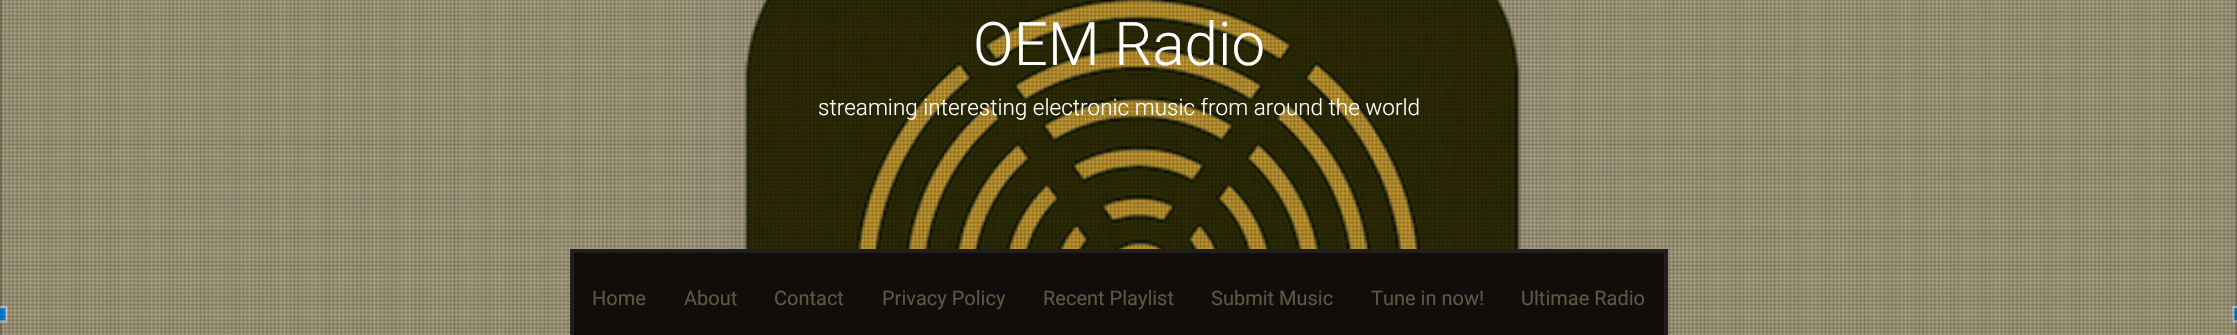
#include "include/core/SkBlurTypes.h"
#include "include/core/SkCanvas.h"
#include "include/core/SkData.h"
#include "include/core/SkFont.h"
#include "include/core/SkFontMgr.h"
#include "include/core/SkImage.h"
#include "include/core/SkMaskFilter.h"
#include "include/core/SkPaint.h"
#include "include/core/SkPathBuilder.h"
#include "include/core/SkTextBlob.h"
#include "include/effects/SkDashPathEffect.h"
#include "include/effects/SkGradientShader.h"
#include "include/utils/SkParsePath.h"

extern sk_sp<SkFontMgr> fontMgr;

void draw(SkCanvas* canvas) {
    SkPaint p;
    p.setAntiAlias(true);
    auto font = [&](const char* family, int weight, float size, bool italic = false) {
        SkFontStyle style(weight, SkFontStyle::kNormal_Width,
            italic ? SkFontStyle::kItalic_Slant : SkFontStyle::kUpright_Slant);
        SkFont result(fontMgr->matchFamilyStyle(family, style), size);
        result.setSubpixel(true);
        return result;
    };
    auto drawPhoto = [&](const char* path, float l, float t, float r, float b) {
        auto image = SkImages::DeferredFromEncodedData(SkData::MakeFromFileName(path));
        canvas->drawImageRect(image, SkRect::MakeLTRB(l, t, r, b), SkSamplingOptions());
    };
    canvas->clear(0xFFFFFFFF);
    drawPhoto("media/1.png", 0, 0, 2237, 335);
    drawPhoto("media/2.png", 0, 0, 2237, 335);
    auto font1 = font("Roboto", 300, 60);
    p.setColor(0xFFFFFFFF);
    canvas->drawString("OEM Radio", 973, 65, font1, p);
    auto font2 = font("Roboto", 300, 22.5f);
    canvas->drawString("streaming interesting electronic music from around the world", 818, 115, font2, p);
    p.setColor(0xFF100D0A);
    canvas->drawRect(SkRect::MakeLTRB(572, 251, 1666, 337), p);
    p.setStyle(SkPaint::kStroke_Style);
    p.setStrokeWidth(4);
    p.setColor(0xFF211E1B);
    canvas->drawRect(SkRect::MakeLTRB(572, 251, 1666, 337), p);
    auto font3 = font("Roboto", 400, 20);
    p.setStyle(SkPaint::kFill_Style);
    p.setColor(0xFF615642);
    {
        const struct { const char* s; float x, y; } items[] = {
            {"Home", 592, 305},
            {"About", 684, 305},
            {"Contact", 774, 305},
            {"Privacy Policy", 882, 305},
            {"Recent Playlist", 1043, 305},
            {"Submit Music", 1211, 305},
            {"Tune in now!", 1371, 305},
            {"Ultimae Radio", 1521, 305},
        };
        for (auto [s, x, y] : items) {
            canvas->drawString(s, x, y, font3, p);
        }
    }
}
